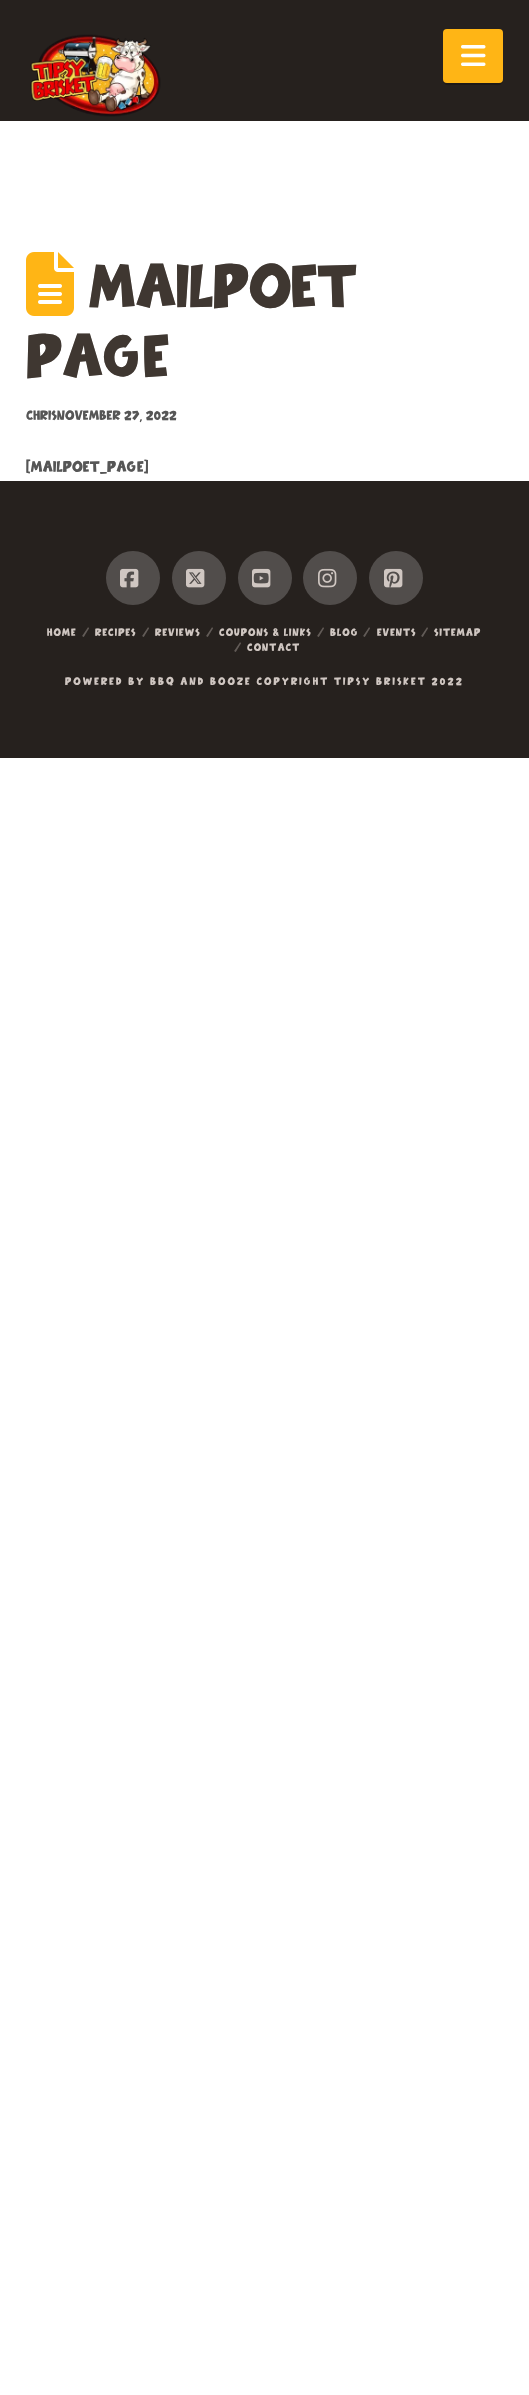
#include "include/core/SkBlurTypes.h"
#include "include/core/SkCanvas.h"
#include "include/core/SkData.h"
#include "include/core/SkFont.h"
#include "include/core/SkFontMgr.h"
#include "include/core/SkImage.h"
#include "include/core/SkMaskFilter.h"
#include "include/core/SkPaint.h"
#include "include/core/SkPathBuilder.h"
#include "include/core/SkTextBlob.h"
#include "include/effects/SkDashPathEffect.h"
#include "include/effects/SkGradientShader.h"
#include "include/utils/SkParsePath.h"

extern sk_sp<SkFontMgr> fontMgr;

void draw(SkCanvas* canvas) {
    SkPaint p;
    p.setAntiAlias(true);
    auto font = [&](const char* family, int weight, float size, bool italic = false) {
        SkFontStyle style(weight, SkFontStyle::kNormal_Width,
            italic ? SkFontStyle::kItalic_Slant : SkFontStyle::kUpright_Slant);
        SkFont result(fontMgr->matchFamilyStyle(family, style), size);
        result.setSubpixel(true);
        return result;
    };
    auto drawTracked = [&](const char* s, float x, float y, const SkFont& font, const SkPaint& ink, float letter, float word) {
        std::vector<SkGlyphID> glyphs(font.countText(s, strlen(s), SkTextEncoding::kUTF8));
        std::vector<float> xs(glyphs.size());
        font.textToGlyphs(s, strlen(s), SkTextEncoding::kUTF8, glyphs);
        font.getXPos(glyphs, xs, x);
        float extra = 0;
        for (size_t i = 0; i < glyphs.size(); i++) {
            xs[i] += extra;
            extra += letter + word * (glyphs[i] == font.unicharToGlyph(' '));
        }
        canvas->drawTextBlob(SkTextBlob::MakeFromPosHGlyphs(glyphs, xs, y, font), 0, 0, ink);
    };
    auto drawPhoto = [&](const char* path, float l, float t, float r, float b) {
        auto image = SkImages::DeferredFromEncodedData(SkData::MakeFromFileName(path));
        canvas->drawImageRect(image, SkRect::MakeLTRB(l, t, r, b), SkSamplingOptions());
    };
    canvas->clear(0xFFFFFFFF);
    p.setColor(0xFF26211E);
    canvas->drawRect(SkRect::MakeLTRB(0, 0, 529, 121), p);
    drawPhoto("media/1.png", 30, 34, 161, 117);
    p.setColor(0xFF1D1917);
    canvas->drawPath(SkPathBuilder().moveTo(443, 79).cubicTo(443, 87, 448, 85, 456, 85).lineTo(490, 85).cubicTo(498, 85, 503, 87, 503, 79).cubicTo(503, 81, 501, 83, 499, 83).lineTo(447, 83).cubicTo(445, 83, 443, 81, 443, 79).close().detach(), p);
    p.setColor(0xFFFFB515);
    canvas->drawRoundRect(SkRect::MakeLTRB(443, 29, 503, 83), 4, 4, p);
    drawPhoto("media/2.png", 461, 45, 486, 66);
    drawPhoto("media/3.png", 26, 252, 74, 316);
    auto font1 = font("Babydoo", 400, 64);
    p.setColor(0xFF3F3731);
    drawTracked("MAILPOET", 88, 308, font1, p, -1, 0);
    drawTracked("PAGE", 26, 378, font1, p, -1, 0);
    auto font2 = font("Babydoo", 400, 14);
    p.setColor(0xFF565656);
    canvas->drawString("ChrisNovember 27, 2022", 26, 420, font2, p);
    auto font3 = font("Babydoo", 400, 16);
    canvas->drawString("[mailpoet_page]", 26, 472, font3, p);
    p.setColor(0xFF26211E);
    canvas->drawRect(SkRect::MakeLTRB(0, 481, 529, 758), p);
    p.setColor(0xFF514D4B);
    canvas->drawCircle(133, 578, 27, p);
    drawPhoto("media/4.png", 120, 568, 139, 588);
    canvas->drawCircle(199, 578, 27, p);
    drawPhoto("media/5.png", 186, 568, 205, 588);
    canvas->drawCircle(265, 578, 27, p);
    drawPhoto("media/6.png", 252, 568, 271, 588);
    canvas->drawCircle(330, 578, 27, p);
    drawPhoto("media/7.png", 318, 568, 337, 588);
    canvas->drawCircle(396, 578, 27, p);
    drawPhoto("media/8.png", 384, 568, 403, 588);
    auto font4 = font("Babydoo", 400, 11);
    p.setColor(0xFFD0C7C2);
    drawTracked("HOME", 47, 636, font4, p, 1, 0);
    p.setColor(0xFF625B57);
    canvas->drawString("/", 82, 636, font4, p);
    p.setColor(0xFFD0C7C2);
    drawTracked("RECIPES", 95, 636, font4, p, 1, 0);
    p.setColor(0xFF625B57);
    canvas->drawString("/", 142, 636, font4, p);
    p.setColor(0xFFD0C7C2);
    drawTracked("REVIEWS", 155, 636, font4, p, 1, 0);
    p.setColor(0xFF625B57);
    canvas->drawString("/", 206, 636, font4, p);
    p.setColor(0xFFD0C7C2);
    drawTracked("COUPONS & LINKS", 219, 636, font4, p, 1, 0);
    p.setColor(0xFF625B57);
    canvas->drawString("/", 317, 636, font4, p);
    p.setColor(0xFFD0C7C2);
    drawTracked("BLOG", 330, 636, font4, p, 1, 0);
    p.setColor(0xFF625B57);
    canvas->drawString("/", 363, 636, font4, p);
    p.setColor(0xFFD0C7C2);
    drawTracked("EVENTS", 377, 636, font4, p, 1, 0);
    p.setColor(0xFF625B57);
    canvas->drawString("/", 421, 636, font4, p);
    p.setColor(0xFFD0C7C2);
    drawTracked("SITEMAP", 434, 636, font4, p, 1, 0);
    p.setColor(0xFF625B57);
    canvas->drawString("/", 234, 651, font4, p);
    p.setColor(0xFFD0C7C2);
    drawTracked("CONTACT", 247, 651, font4, p, 1, 0);
    drawTracked("POWERED BY BBQ AND BOOZE COPYRIGHT TIPSY BRISKET 2022", 65, 685, font4, p, 2, 0);
}
